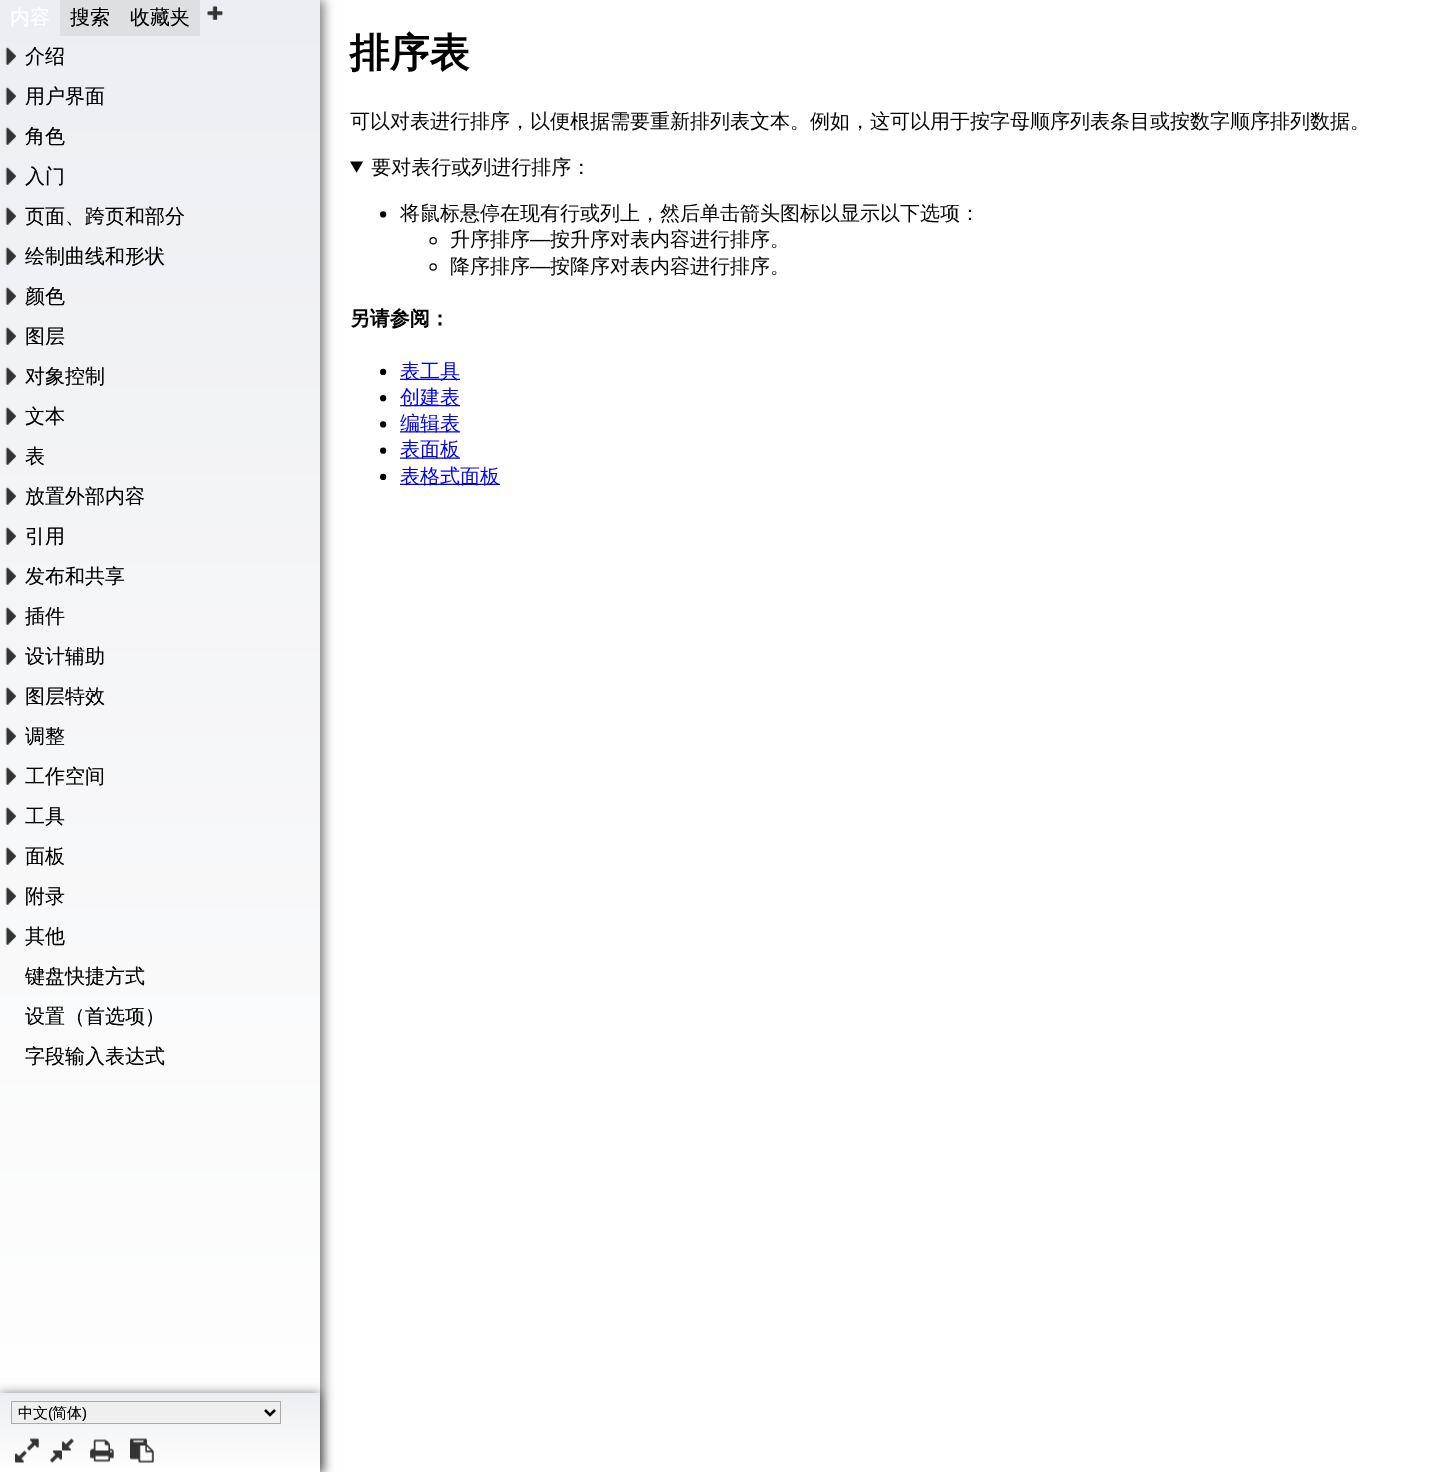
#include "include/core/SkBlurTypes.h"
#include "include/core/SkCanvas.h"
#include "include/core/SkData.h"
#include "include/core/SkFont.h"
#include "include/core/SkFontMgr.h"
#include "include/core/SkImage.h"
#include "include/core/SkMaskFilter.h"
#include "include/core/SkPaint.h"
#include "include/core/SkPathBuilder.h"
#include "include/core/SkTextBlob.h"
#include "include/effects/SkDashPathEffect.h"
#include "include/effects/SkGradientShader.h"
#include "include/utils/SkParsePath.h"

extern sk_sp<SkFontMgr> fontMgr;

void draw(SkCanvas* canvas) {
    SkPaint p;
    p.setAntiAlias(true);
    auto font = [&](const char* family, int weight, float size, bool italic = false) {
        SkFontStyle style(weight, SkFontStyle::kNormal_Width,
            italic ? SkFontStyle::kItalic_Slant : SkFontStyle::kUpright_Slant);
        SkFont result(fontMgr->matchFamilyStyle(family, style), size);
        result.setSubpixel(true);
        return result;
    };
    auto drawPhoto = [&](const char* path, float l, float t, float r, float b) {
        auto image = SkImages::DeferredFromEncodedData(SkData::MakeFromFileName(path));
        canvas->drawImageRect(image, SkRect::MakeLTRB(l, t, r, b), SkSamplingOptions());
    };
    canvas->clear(0xFFFFFFFF);
    p.setColor(0x7D000000);
    p.setMaskFilter(SkMaskFilter::MakeBlur(kNormal_SkBlurStyle, 5));
    canvas->drawRect(SkRect::MakeLTRB(4, 0, 324, 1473), p);
    p.setMaskFilter(nullptr);
    {
        const SkColor colors[] = {0xFFEDEEF1, 0xFFFFFFFF};
        const float stops[] = {0, 1};
        const SkPoint ends[] = {{160, 0}, {160, 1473}};
        p.setShader(SkGradientShader::MakeLinear(ends, colors, stops, 2, SkTileMode::kClamp));
        p.setAlpha(255);
    }
    canvas->drawRect(SkRect::MakeLTRB(0, 0, 320, 1393), p);
    auto font1 = font("WenQuanYi Zen Hei", 500, 20);
    p.setShader(nullptr);
    p.setColor(0xFFFFFFFF);
    canvas->drawString("内容", 10, 24, font1, p);
    drawPhoto("media/1.png", 5, 47, 16, 66);
    p.setColor(0xFF000000);
    canvas->drawString("介绍", 25, 63, font1, p);
    drawPhoto("media/2.png", 5, 87, 16, 106);
    canvas->drawString("用户界面", 25, 103, font1, p);
    drawPhoto("media/3.png", 5, 127, 16, 146);
    canvas->drawString("角色", 25, 143, font1, p);
    drawPhoto("media/4.png", 5, 167, 16, 186);
    canvas->drawString("入门", 25, 183, font1, p);
    drawPhoto("media/5.png", 5, 207, 16, 226);
    canvas->drawString("页面、跨页和部分", 25, 223, font1, p);
    drawPhoto("media/6.png", 5, 247, 16, 266);
    canvas->drawString("绘制曲线和形状", 25, 263, font1, p);
    drawPhoto("media/7.png", 5, 287, 16, 306);
    canvas->drawString("颜色", 25, 303, font1, p);
    drawPhoto("media/8.png", 5, 327, 16, 346);
    canvas->drawString("图层", 25, 343, font1, p);
    drawPhoto("media/9.png", 5, 367, 16, 386);
    canvas->drawString("对象控制", 25, 383, font1, p);
    drawPhoto("media/10.png", 5, 407, 16, 426);
    canvas->drawString("文本", 25, 423, font1, p);
    drawPhoto("media/11.png", 5, 447, 16, 466);
    canvas->drawString("表", 25, 463, font1, p);
    drawPhoto("media/12.png", 5, 487, 16, 506);
    canvas->drawString("放置外部内容", 25, 503, font1, p);
    drawPhoto("media/13.png", 5, 527, 16, 546);
    canvas->drawString("引用", 25, 543, font1, p);
    drawPhoto("media/14.png", 5, 567, 16, 586);
    canvas->drawString("发布和共享", 25, 583, font1, p);
    drawPhoto("media/15.png", 5, 607, 16, 626);
    canvas->drawString("插件", 25, 623, font1, p);
    drawPhoto("media/16.png", 5, 647, 16, 666);
    canvas->drawString("设计辅助", 25, 663, font1, p);
    drawPhoto("media/17.png", 5, 687, 16, 706);
    canvas->drawString("图层特效", 25, 703, font1, p);
    drawPhoto("media/18.png", 5, 727, 16, 746);
    canvas->drawString("调整", 25, 743, font1, p);
    drawPhoto("media/19.png", 5, 767, 16, 786);
    canvas->drawString("工作空间", 25, 783, font1, p);
    drawPhoto("media/20.png", 5, 807, 16, 826);
    canvas->drawString("工具", 25, 823, font1, p);
    drawPhoto("media/21.png", 5, 847, 16, 866);
    canvas->drawString("面板", 25, 863, font1, p);
    drawPhoto("media/22.png", 5, 887, 16, 906);
    canvas->drawString("附录", 25, 903, font1, p);
    drawPhoto("media/23.png", 5, 927, 16, 946);
    {
        const struct { const char* s; float x, y; } items[] = {
            {"其他", 25, 943},
            {"键盘快捷方式", 25, 983},
            {"设置（首选项）", 25, 1023},
            {"字段输入表达式", 25, 1063},
        };
        for (auto [s, x, y] : items) {
            canvas->drawString(s, x, y, font1, p);
        }
    }
    drawPhoto("media/24.png", 207, 5, 223, 20);
    p.setColor(0xFFDEDFE1);
    canvas->drawRect(SkRect::MakeLTRB(60, 0, 200, 36), p);
    p.setColor(0xFF000000);
    canvas->drawString("搜索", 70, 24, font1, p);
    canvas->drawString("收藏夹", 130, 24, font1, p);
    p.setColor(0x7D000000);
    p.setMaskFilter(SkMaskFilter::MakeBlur(kNormal_SkBlurStyle, 5));
    canvas->drawRect(SkRect::MakeLTRB(0, 1393, 320, 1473), p);
    p.setMaskFilter(nullptr);
    {
        const SkColor colors[] = {0xFFEDEEF1, 0xFFFFFFFF};
        const float stops[] = {0, 1};
        const SkPoint ends[] = {{160, 1393}, {160, 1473}};
        p.setShader(SkGradientShader::MakeLinear(ends, colors, stops, 2, SkTileMode::kClamp));
        p.setAlpha(255);
    }
    canvas->drawRect(SkRect::MakeLTRB(0, 1393, 320, 1472), p);
    p.setShader(nullptr);
    p.setColor(0xFFEFEFEF);
    canvas->drawRect(SkRect::MakeLTRB(11.5f, 1401.5f, 280.5f, 1423.5f), p);
    p.setStyle(SkPaint::kStroke_Style);
    p.setStrokeWidth(1);
    p.setColor(0xFFAAAAAA);
    canvas->drawRect(SkRect::MakeLTRB(11.5f, 1401.5f, 280.5f, 1423.5f), p);
    p.setStrokeWidth(2.5f);
    p.setColor(0xFF000000);
    canvas->drawPath(SkPathBuilder().moveTo(265, 1410).lineTo(270, 1415).lineTo(275, 1410).detach(), p);
    auto font2 = font("WenQuanYi Zen Hei", 500, 15);
    p.setStyle(SkPaint::kFill_Style);
    canvas->drawString("中文", 18, 1418, font2, p);
    auto font3 = font("Liberation Sans", 400, 15);
    canvas->drawString("(", 48, 1418, font3, p);
    canvas->drawString("简体", 52, 1418, font2, p);
    canvas->drawString(")", 82, 1418, font3, p);
    drawPhoto("media/25.png", 15, 1438, 39, 1463);
    drawPhoto("media/26.png", 50, 1438, 74, 1463);
    drawPhoto("media/27.png", 90, 1439, 114, 1463);
    drawPhoto("media/28.png", 130, 1438, 154, 1463);
    drawPhoto("media/29.png", 349, 31, 1357, 486);
}
